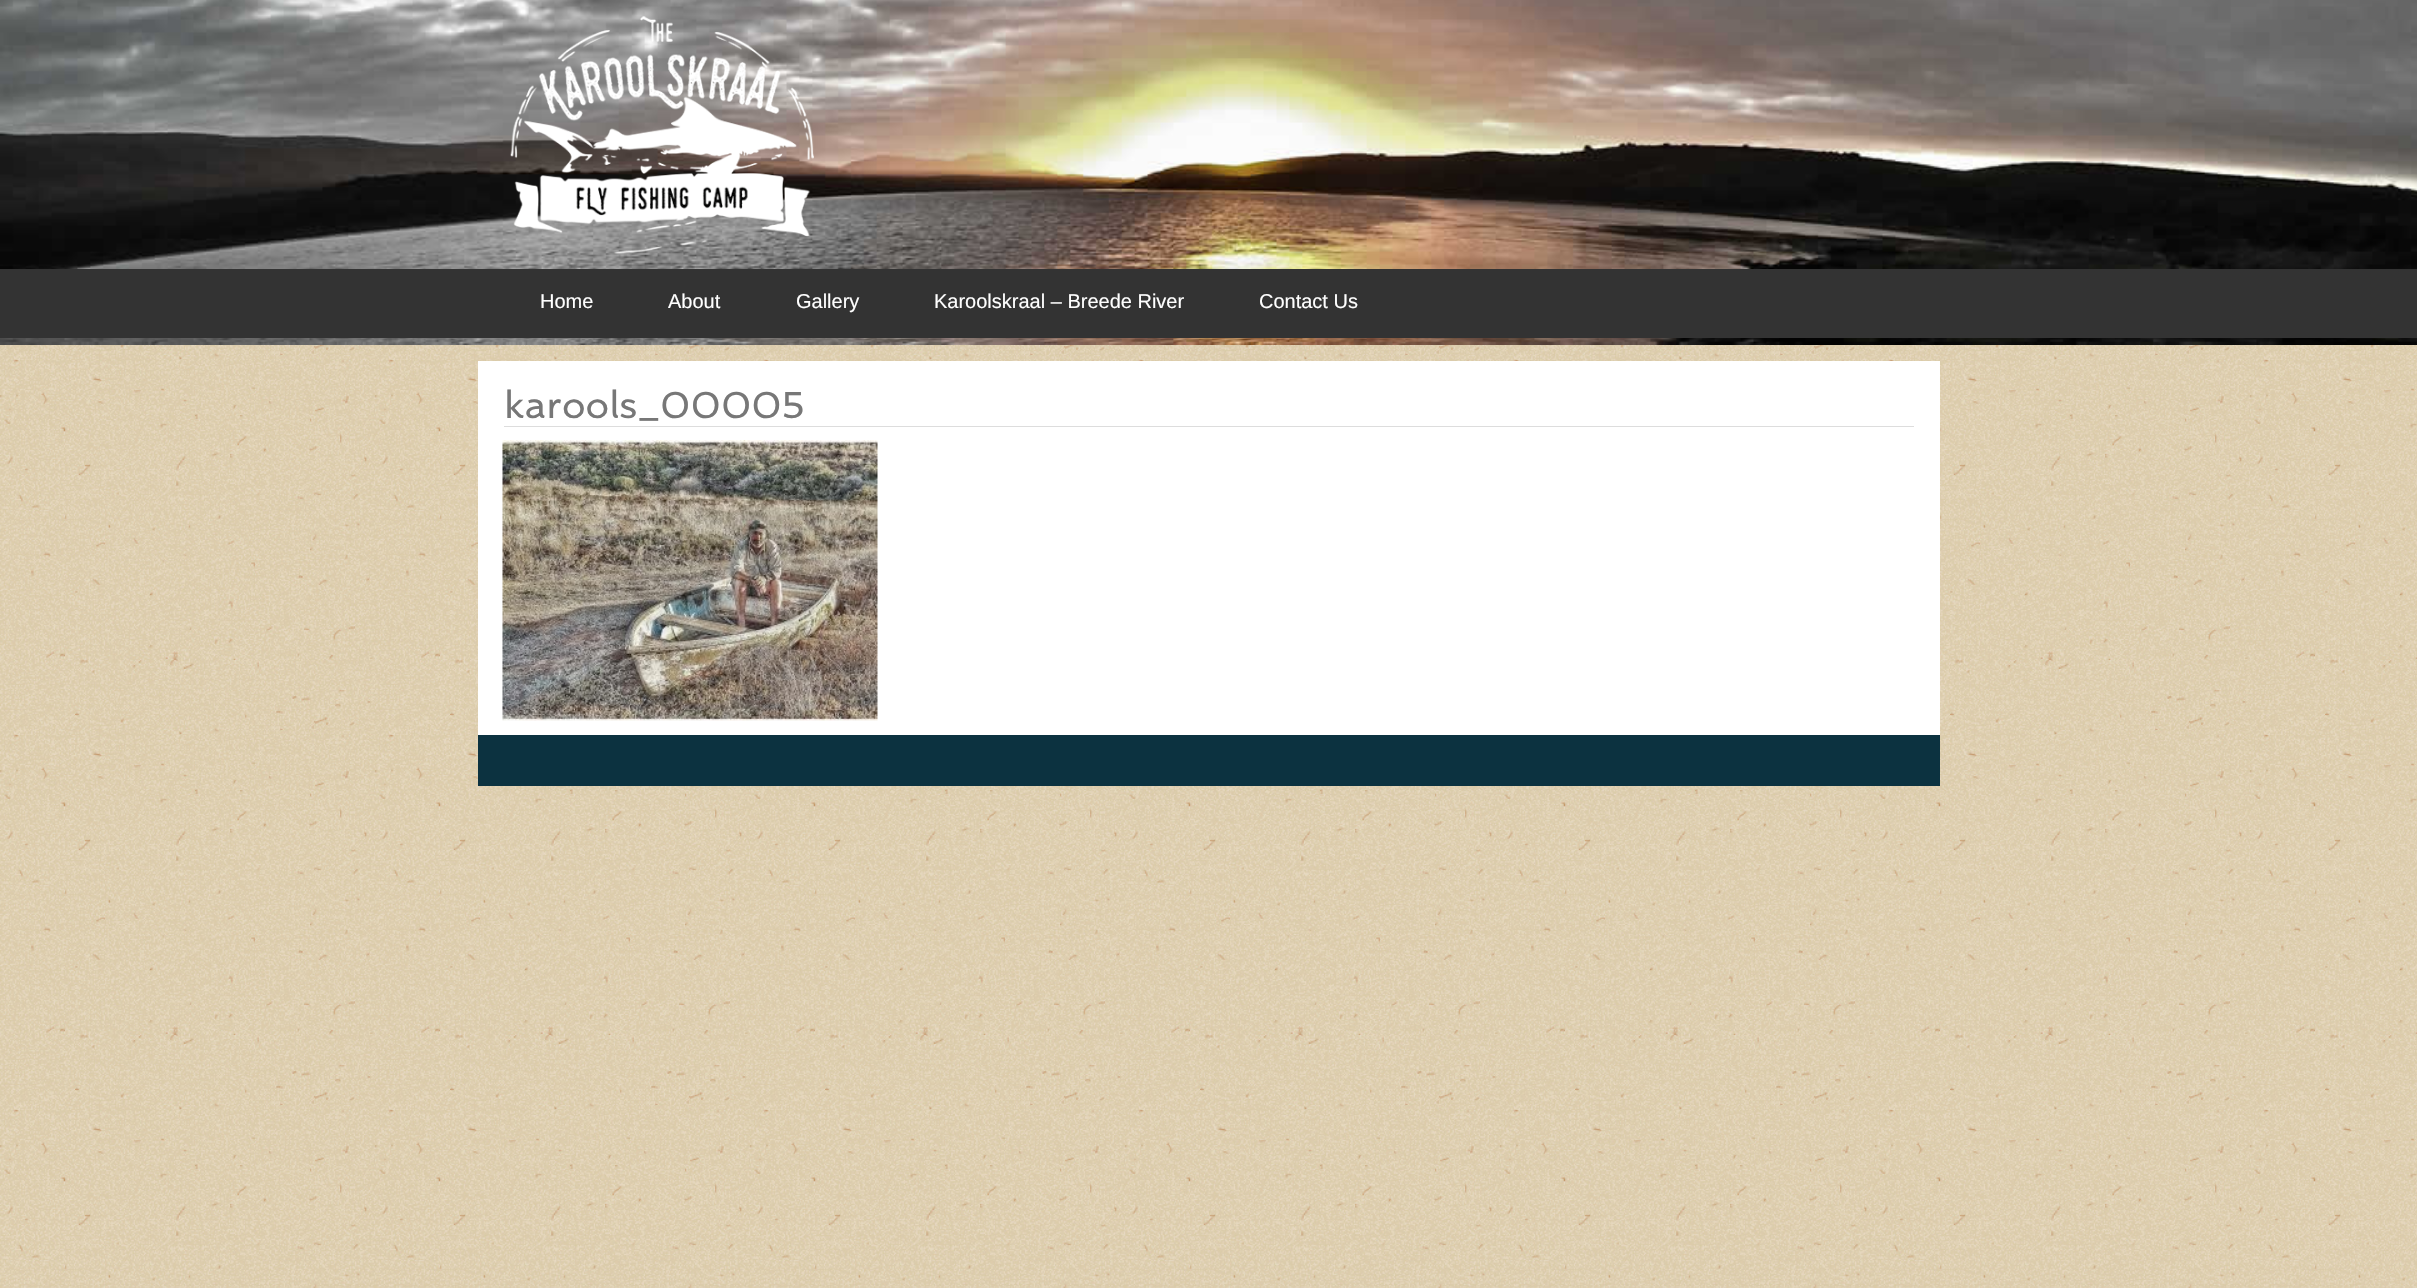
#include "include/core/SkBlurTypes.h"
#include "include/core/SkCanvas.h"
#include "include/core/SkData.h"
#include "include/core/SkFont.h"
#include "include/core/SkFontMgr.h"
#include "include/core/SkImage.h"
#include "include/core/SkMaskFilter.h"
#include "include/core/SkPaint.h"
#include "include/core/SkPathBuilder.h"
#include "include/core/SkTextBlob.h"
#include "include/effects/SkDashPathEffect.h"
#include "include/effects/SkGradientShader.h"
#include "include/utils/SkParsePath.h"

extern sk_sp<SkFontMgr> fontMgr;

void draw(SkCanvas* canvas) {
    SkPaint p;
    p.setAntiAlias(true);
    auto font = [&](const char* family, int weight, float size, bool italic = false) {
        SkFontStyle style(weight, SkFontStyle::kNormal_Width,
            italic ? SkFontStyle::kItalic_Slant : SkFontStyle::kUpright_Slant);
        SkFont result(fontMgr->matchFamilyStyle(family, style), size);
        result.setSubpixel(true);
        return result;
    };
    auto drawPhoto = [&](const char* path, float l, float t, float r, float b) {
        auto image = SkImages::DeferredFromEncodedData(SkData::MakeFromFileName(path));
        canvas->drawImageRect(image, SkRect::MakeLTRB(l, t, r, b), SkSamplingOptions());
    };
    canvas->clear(0xFFFFFFFF);
    drawPhoto("media/1.png", 0, 345, 2417, 1288);
    drawPhoto("media/2.png", 0, 0, 2417, 345);
    drawPhoto("media/3.png", 510, 16, 814, 254);
    p.setColor(0xFF333333);
    canvas->drawRect(SkRect::MakeLTRB(0, 269, 2417, 338), p);
    auto font1 = font("Liberation Sans", 400, 20);
    p.setColor(0xFFFFFFFF);
    {
        const struct { const char* s; float x, y; } items[] = {
            {"Home", 540, 308},
            {"About", 668, 308},
            {"Gallery", 796, 308},
            {"Karoolskraal – Breede River", 934, 308},
            {"Contact Us", 1259, 308},
        };
        for (auto [s, x, y] : items) {
            canvas->drawString(s, x, y, font1, p);
        }
    }
    canvas->drawRect(SkRect::MakeLTRB(478, 361, 1940, 735), p);
    p.setColor(0xFFDDDDDD);
    canvas->drawRect(SkRect::MakeLTRB(504, 426, 1914, 427), p);
    auto font2 = font("Spinnaker", 400, 37.5f);
    p.setColor(0xFF777777);
    canvas->drawString("karools_00005", 504, 418, font2, p);
    drawPhoto("media/4.png", 502, 440, 878, 721);
    p.setColor(0xFF0C3240);
    canvas->drawRect(SkRect::MakeLTRB(478, 735, 1940, 786), p);
}
